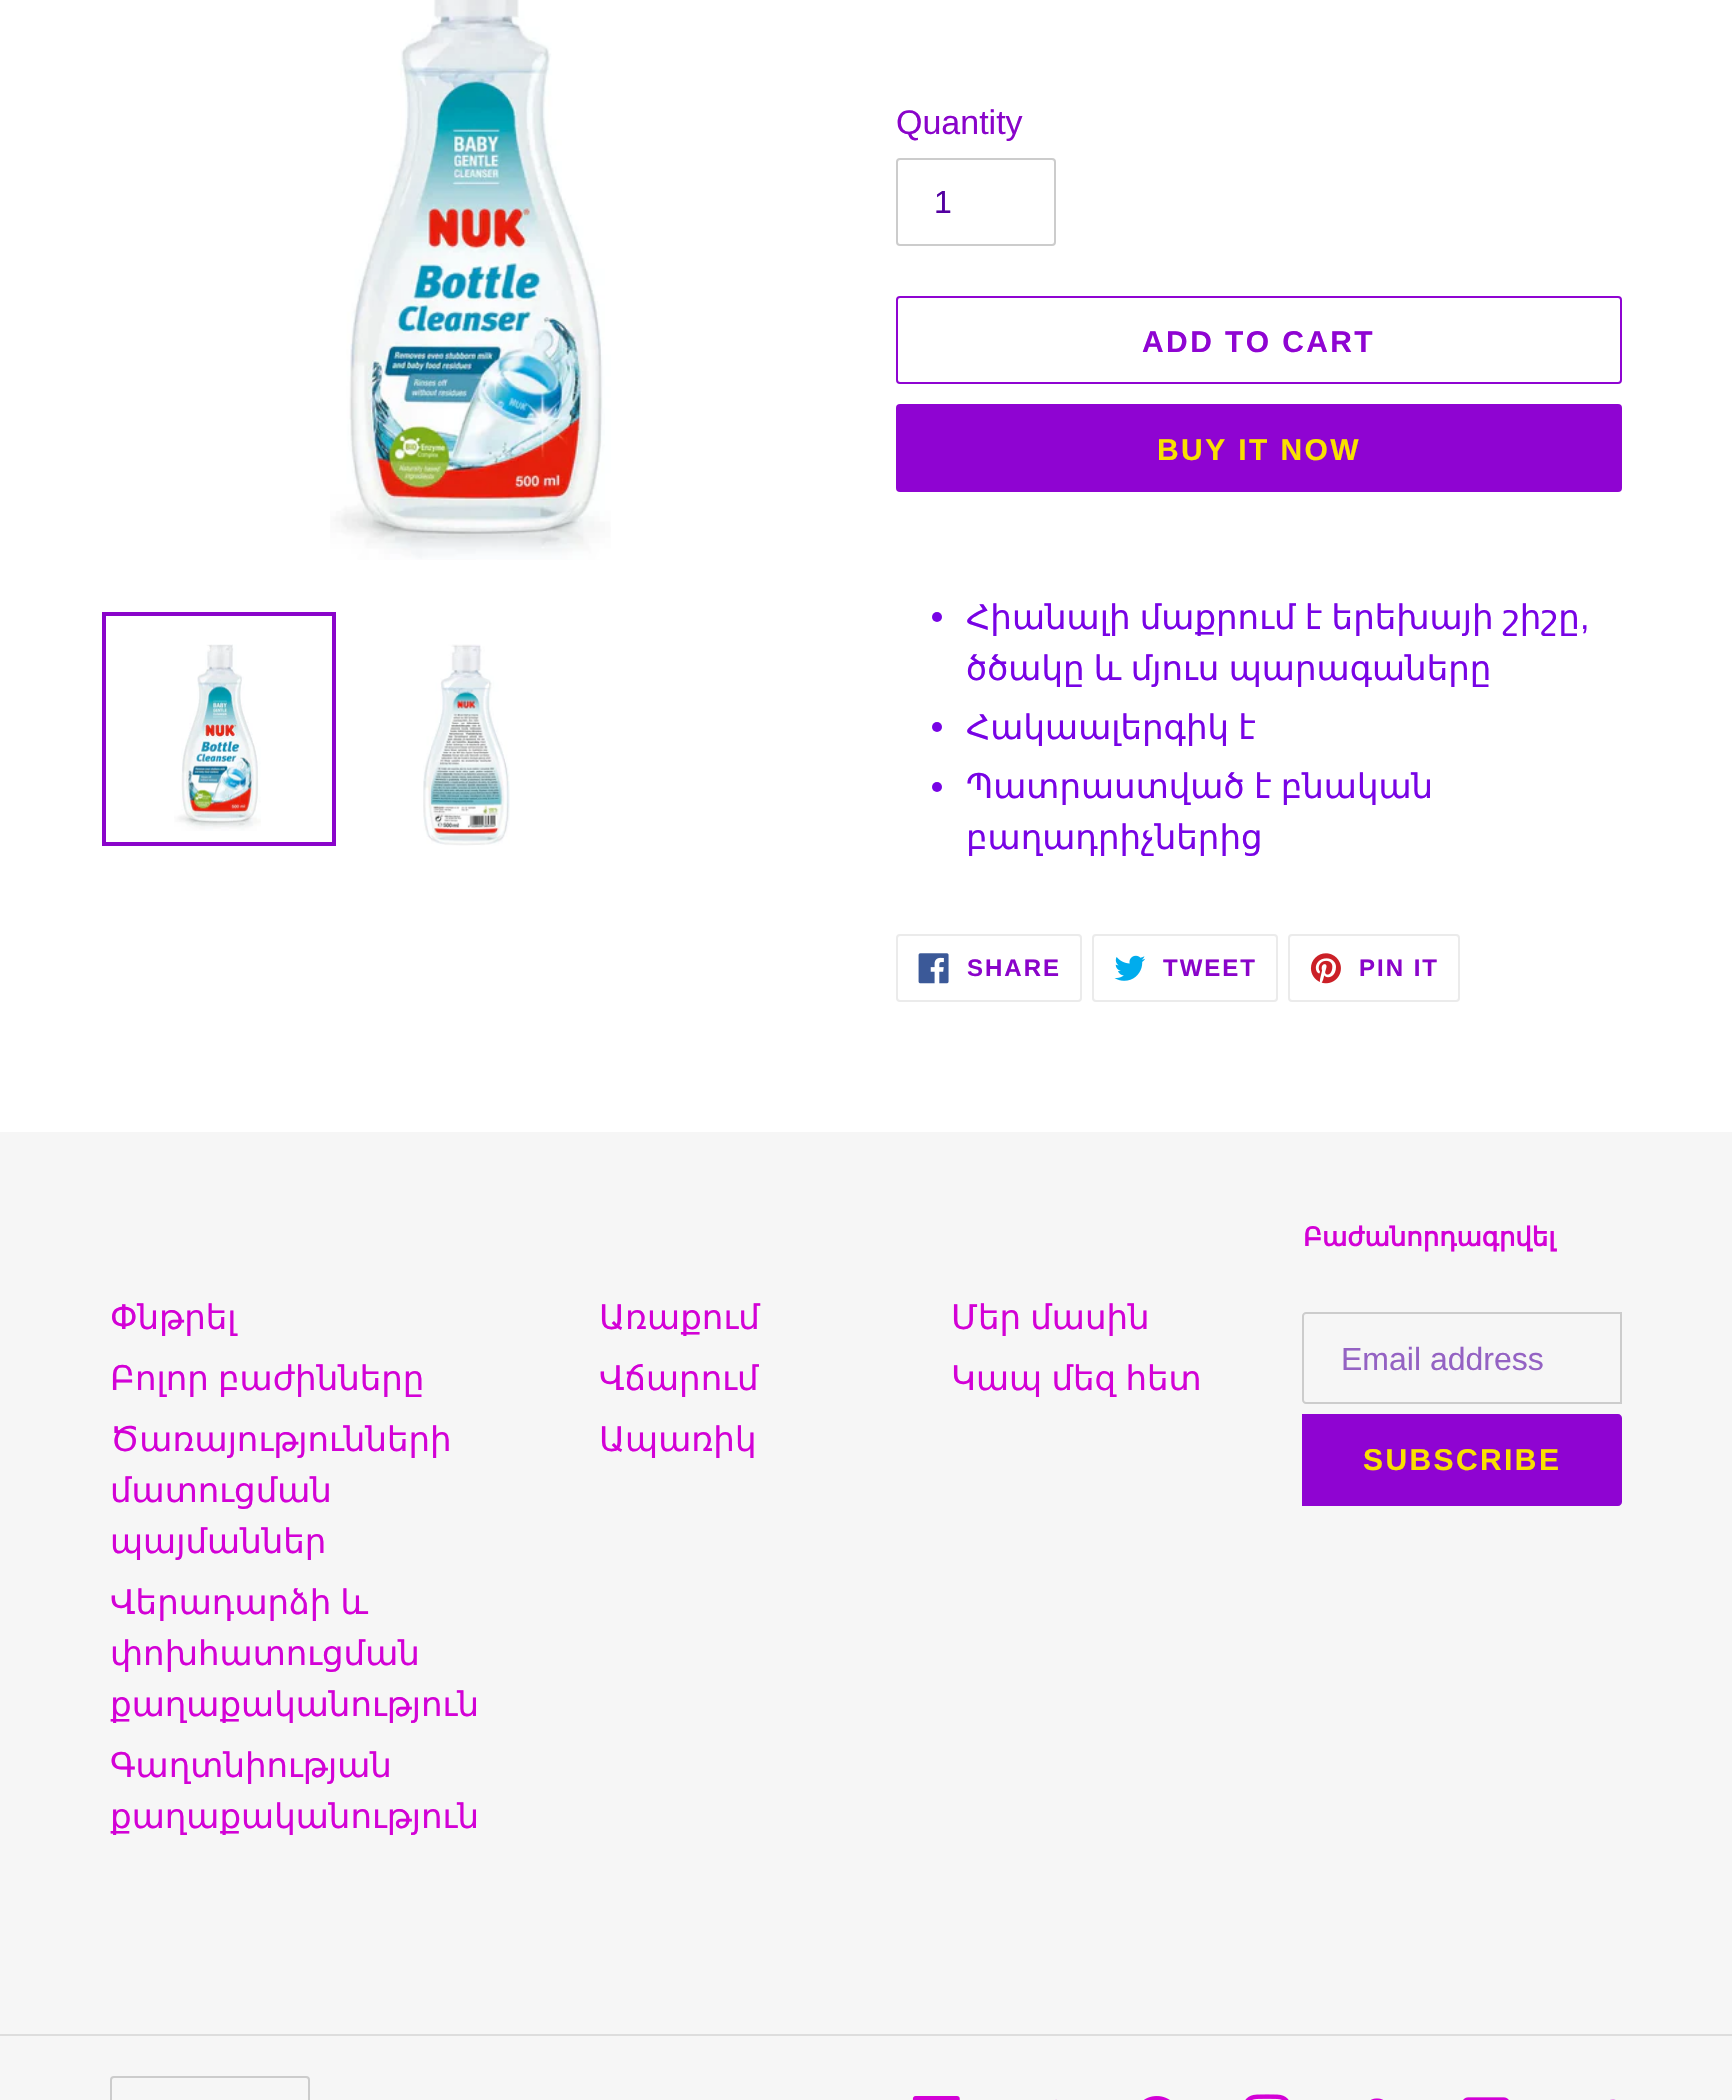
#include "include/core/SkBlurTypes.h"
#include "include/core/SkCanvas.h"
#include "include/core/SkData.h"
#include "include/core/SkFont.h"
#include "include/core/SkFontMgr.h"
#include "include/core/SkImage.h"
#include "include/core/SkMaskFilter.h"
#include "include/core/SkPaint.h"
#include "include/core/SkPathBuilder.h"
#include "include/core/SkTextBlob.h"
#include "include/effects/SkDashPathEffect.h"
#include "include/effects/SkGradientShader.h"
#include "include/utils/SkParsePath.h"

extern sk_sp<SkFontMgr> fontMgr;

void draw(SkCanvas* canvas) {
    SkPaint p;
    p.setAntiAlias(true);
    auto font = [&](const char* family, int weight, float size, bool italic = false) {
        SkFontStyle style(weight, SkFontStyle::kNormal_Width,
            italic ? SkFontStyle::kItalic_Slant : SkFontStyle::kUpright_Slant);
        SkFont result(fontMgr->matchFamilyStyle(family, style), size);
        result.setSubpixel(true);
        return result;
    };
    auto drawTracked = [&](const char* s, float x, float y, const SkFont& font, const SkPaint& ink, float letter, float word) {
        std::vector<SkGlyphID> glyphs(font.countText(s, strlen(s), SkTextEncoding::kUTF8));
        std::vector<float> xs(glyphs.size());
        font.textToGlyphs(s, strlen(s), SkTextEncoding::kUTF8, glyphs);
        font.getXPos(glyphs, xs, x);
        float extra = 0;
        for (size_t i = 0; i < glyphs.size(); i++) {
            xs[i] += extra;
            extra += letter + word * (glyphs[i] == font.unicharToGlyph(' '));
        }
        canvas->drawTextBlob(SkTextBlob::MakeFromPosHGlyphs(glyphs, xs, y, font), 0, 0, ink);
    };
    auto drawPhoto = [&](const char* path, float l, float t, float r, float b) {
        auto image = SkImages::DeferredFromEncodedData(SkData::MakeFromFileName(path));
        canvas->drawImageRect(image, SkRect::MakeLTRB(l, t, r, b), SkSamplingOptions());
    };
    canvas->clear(0xFFFFFFFF);
    drawPhoto("media/1.png", 330, 0, 611, 560);
    p.setStyle(SkPaint::kStroke_Style);
    p.setStrokeWidth(4);
    p.setColor(0xFF8A04CA);
    canvas->drawRect(SkRect::MakeLTRB(104, 614, 334, 844), p);
    drawPhoto("media/2.png", 174, 644, 261, 831);
    drawPhoto("media/3.png", 423, 644, 510, 846);
    auto font1 = font("Liberation Sans", 400, 34);
    p.setStyle(SkPaint::kFill_Style);
    canvas->drawString("Quantity", 896, 134, font1, p);
    p.setStyle(SkPaint::kStroke_Style);
    p.setStrokeWidth(2);
    p.setColor(0xFFCCCCCC);
    canvas->drawRoundRect(SkRect::MakeLTRB(897, 159, 1055, 245), 3, 3, p);
    auto font2 = font("Liberation Sans", 400, 32);
    p.setStyle(SkPaint::kFill_Style);
    p.setColor(0xFF5300A1);
    canvas->drawString("1", 934, 213, font2, p);
    p.setStyle(SkPaint::kStroke_Style);
    p.setColor(0xFF8F04D2);
    canvas->drawRoundRect(SkRect::MakeLTRB(897, 297, 1621, 383), 3, 3, p);
    auto font3 = font("Liberation Sans", 700, 30);
    p.setStyle(SkPaint::kFill_Style);
    drawTracked("ADD TO CART", 1142, 352, font3, p, 2.4f, 0);
    canvas->drawRoundRect(SkRect::MakeLTRB(896, 404, 1622, 492), 4, 4, p);
    p.setColor(0xFFFAE000);
    drawTracked("BUY IT NOW", 1157, 460, font3, p, 2.4f, 0);
    p.setColor(0xFF7803E5);
    canvas->drawCircle(937, 617, 5, p);
    auto font4 = font("DejaVu Sans", 400, 34);
    drawTracked("Հիանալի մաքրում է երեխայի շիշը", 966, 629, font4, p, 0, -1.5f);
    canvas->drawString(",", 1580, 629, font1, p);
    drawTracked("ծծակը և մյուս պարագաները", 966, 680, font4, p, 0, -1.5f);
    canvas->drawCircle(937, 727, 5, p);
    drawTracked("Հակաալերգիկ է", 966, 739, font4, p, 0, -1.5f);
    canvas->drawCircle(937, 787, 5, p);
    drawTracked("Պատրաստված է բնական", 966, 798, font4, p, 0, -1.5f);
    canvas->drawString("բաղադրիչներից", 966, 849, font4, p);
    p.setStyle(SkPaint::kStroke_Style);
    p.setColor(0xFFEBEBEB);
    canvas->drawRoundRect(SkRect::MakeLTRB(897, 935, 1081, 1001), 3, 3, p);
    drawPhoto("media/4.png", 918, 953, 949, 984);
    auto font5 = font("Liberation Sans", 700, 24);
    p.setStyle(SkPaint::kFill_Style);
    p.setColor(0xFF8A04CA);
    drawTracked("SHARE", 967, 976, font5, p, 2, 0);
    p.setStyle(SkPaint::kStroke_Style);
    p.setColor(0xFFEBEBEB);
    canvas->drawRoundRect(SkRect::MakeLTRB(1093, 935, 1277, 1001), 3, 3, p);
    drawPhoto("media/5.png", 1114, 955, 1146, 981);
    p.setStyle(SkPaint::kFill_Style);
    p.setColor(0xFF8A04CA);
    drawTracked("TWEET", 1163, 976, font5, p, 2, 0);
    p.setStyle(SkPaint::kStroke_Style);
    p.setColor(0xFFEBEBEB);
    canvas->drawRoundRect(SkRect::MakeLTRB(1289, 935, 1459, 1001), 3, 3, p);
    drawPhoto("media/6.png", 1310, 953, 1341, 984);
    p.setStyle(SkPaint::kFill_Style);
    p.setColor(0xFF8A04CA);
    drawTracked("PIN IT", 1359, 976, font5, p, 2, 0);
    p.setColor(0xFFF6F6F6);
    canvas->drawRect(SkRect::MakeLTRB(0, 1132, 1732, 2100), p);
    p.setColor(0xFFD301D6);
    canvas->drawString("Փնթրել", 110, 1329, font4, p);
    drawTracked("Բոլոր բաժինները", 110, 1390, font4, p, 0, -1.5f);
    {
        const struct { const char* s; float x, y; } items[] = {
            {"Ծառայությունների", 110, 1451},
            {"մատուցման", 110, 1502},
            {"պայմաններ", 110, 1553},
        };
        for (auto [s, x, y] : items) {
            canvas->drawString(s, x, y, font4, p);
        }
    }
    drawTracked("Վերադարձի և", 110, 1614, font4, p, 0, -1.5f);
    {
        const struct { const char* s; float x, y; } items[] = {
            {"փոխհատուցման", 110, 1665},
            {"քաղաքականություն", 110, 1716},
            {"Գաղտնիության", 110, 1777},
            {"քաղաքականություն", 110, 1828},
            {"Առաքում", 599, 1329},
            {"Վճարում", 599, 1390},
            {"Ապառիկ", 599, 1451},
        };
        for (auto [s, x, y] : items) {
            canvas->drawString(s, x, y, font4, p);
        }
    }
    drawTracked("Մեր մասին", 951, 1329, font4, p, 0, -1.5f);
    drawTracked("Կապ մեզ հետ", 951, 1390, font4, p, 0, -1.5f);
    auto font6 = font("DejaVu Sans", 700, 26);
    canvas->drawString("Բաժանորդագրվել", 1303, 1246, font6, p);
    p.setStyle(SkPaint::kStroke_Style);
    p.setColor(0xFFCCCCCC);
    canvas->drawPath(SkPathBuilder().moveTo(1306, 1313).lineTo(1621, 1313).lineTo(1621, 1403).lineTo(1306, 1403).cubicTo(1304.5f, 1403, 1303, 1401.5f, 1303, 1400).lineTo(1303, 1316).cubicTo(1303, 1314.5f, 1304.5f, 1313, 1306, 1313).close().detach(), p);
    p.setStyle(SkPaint::kFill_Style);
    p.setColor(0xFF9462C3);
    canvas->drawString("Email address", 1341, 1370, font2, p);
    p.setColor(0xFF8F04D2);
    canvas->drawPath(SkPathBuilder().moveTo(1302, 1414).lineTo(1618, 1414).cubicTo(1620, 1414, 1622, 1416, 1622, 1418).lineTo(1622, 1502).cubicTo(1622, 1504, 1620, 1506, 1618, 1506).lineTo(1302, 1506).close().detach(), p);
    p.setColor(0xFFFAE000);
    drawTracked("SUBSCRIBE", 1363, 1470, font3, p, 2.4f, 0);
    p.setColor(0xFFDDDDDD);
    canvas->drawRect(SkRect::MakeLTRB(0, 2034, 1732, 2036), p);
    p.setStyle(SkPaint::kStroke_Style);
    p.setColor(0xFFCCCCCC);
    canvas->drawRoundRect(SkRect::MakeLTRB(111, 2077, 309, 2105), 3, 3, p);
    drawPhoto("media/7.png", 912, 2096, 960, 2100);
    drawPhoto("media/8.png", 1055, 2099, 1057, 2100);
    drawPhoto("media/9.png", 1144, 2096, 1170, 2100);
    drawPhoto("media/10.png", 1245, 2094, 1289, 2100);
    drawPhoto("media/11.png", 1370, 2098, 1384, 2100);
    drawPhoto("media/12.png", 1463, 2097, 1509, 2100);
    drawPhoto("media/13.png", 1610, 2099, 1616, 2100);
}
